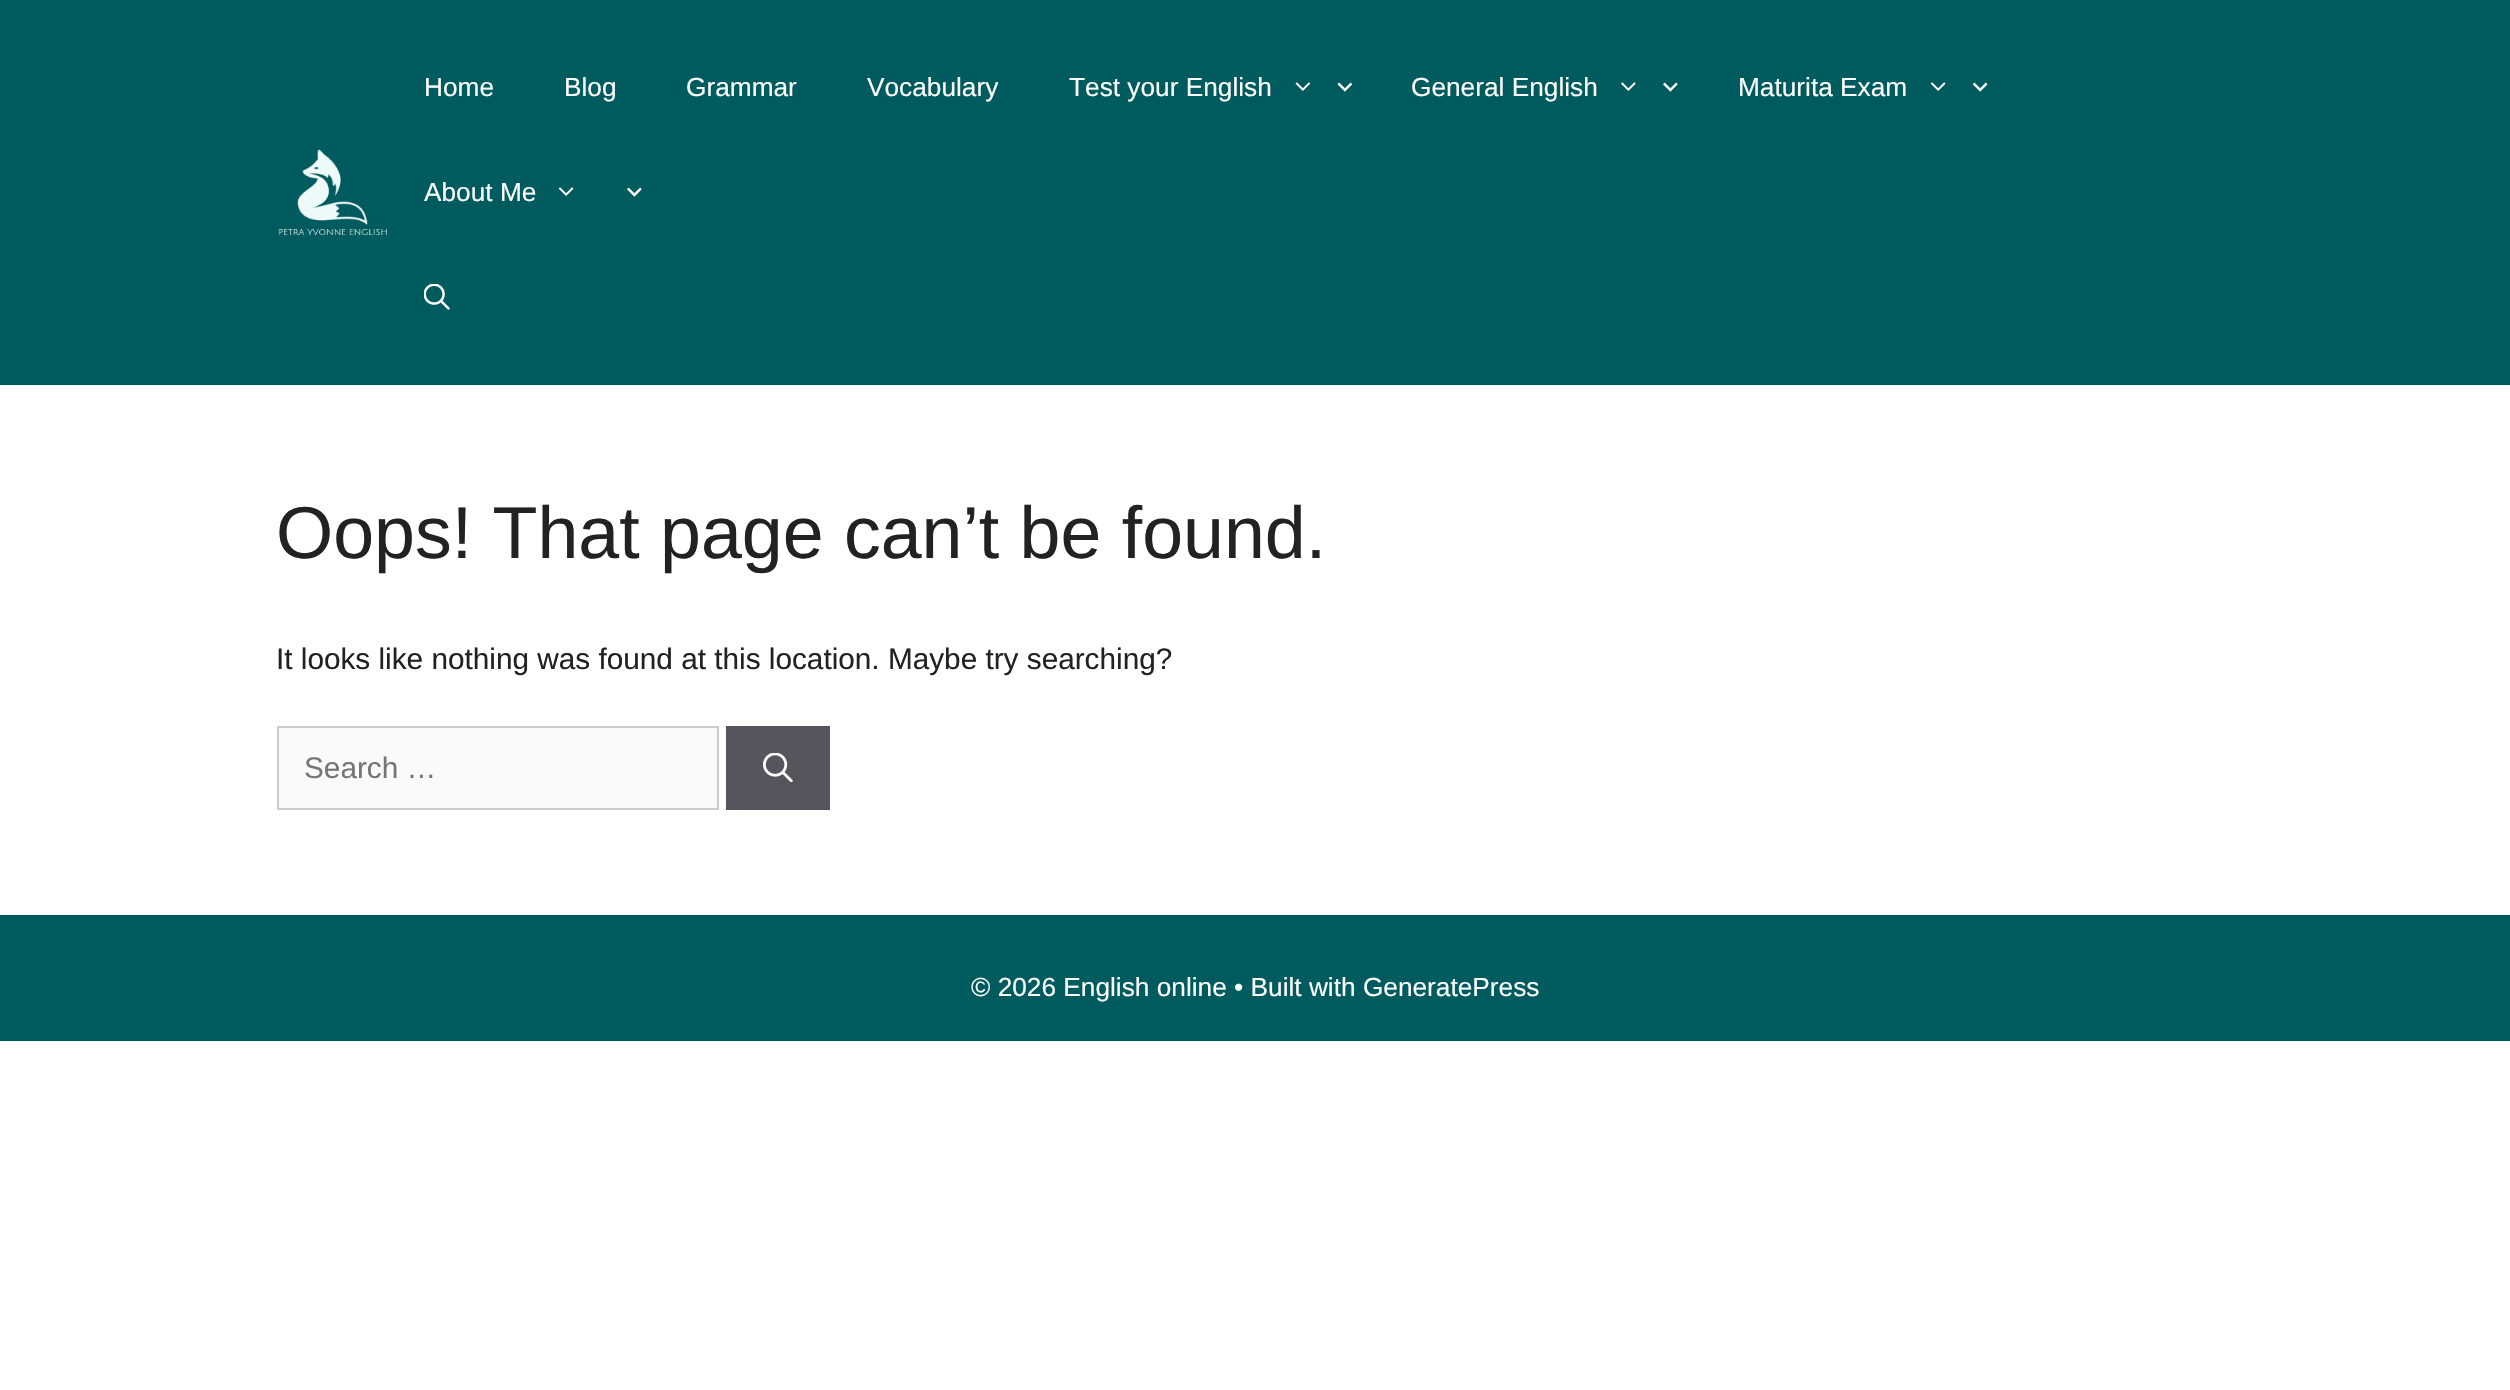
#include "include/core/SkBlurTypes.h"
#include "include/core/SkCanvas.h"
#include "include/core/SkData.h"
#include "include/core/SkFont.h"
#include "include/core/SkFontMgr.h"
#include "include/core/SkImage.h"
#include "include/core/SkMaskFilter.h"
#include "include/core/SkPaint.h"
#include "include/core/SkPathBuilder.h"
#include "include/core/SkTextBlob.h"
#include "include/effects/SkDashPathEffect.h"
#include "include/effects/SkGradientShader.h"
#include "include/utils/SkParsePath.h"

extern sk_sp<SkFontMgr> fontMgr;

void draw(SkCanvas* canvas) {
    SkPaint p;
    p.setAntiAlias(true);
    auto font = [&](const char* family, int weight, float size, bool italic = false) {
        SkFontStyle style(weight, SkFontStyle::kNormal_Width,
            italic ? SkFontStyle::kItalic_Slant : SkFontStyle::kUpright_Slant);
        SkFont result(fontMgr->matchFamilyStyle(family, style), size);
        result.setSubpixel(true);
        return result;
    };
    auto drawPhoto = [&](const char* path, float l, float t, float r, float b) {
        auto image = SkImages::DeferredFromEncodedData(SkData::MakeFromFileName(path));
        canvas->drawImageRect(image, SkRect::MakeLTRB(l, t, r, b), SkSamplingOptions());
    };
    canvas->clear(0xFFFFFFFF);
    p.setColor(0xFF005B5F);
    canvas->drawRect(SkRect::MakeLTRB(0, 0, 2510, 385), p);
    drawPhoto("media/1.png", 278, 149, 387, 235);
    auto font1 = font("Liberation Sans", 400, 26.25f);
    p.setColor(0xFFFFFFFF);
    {
        const struct { const char* s; float x, y; } items[] = {
            {"Home", 424, 96},
            {"Blog", 564, 96},
            {"Grammar", 686, 96},
            {"Vocabulary", 867, 96},
            {"Test your English", 1069, 96},
        };
        for (auto [s, x, y] : items) {
            canvas->drawString(s, x, y, font1, p);
        }
    }
    drawPhoto("media/2.png", 1295, 82, 1311, 91);
    drawPhoto("media/3.png", 1337, 82, 1353, 92);
    canvas->drawString("General English", 1411, 96, font1, p);
    drawPhoto("media/4.png", 1621, 82, 1636, 91);
    drawPhoto("media/5.png", 1663, 82, 1678, 92);
    canvas->drawString("Maturita Exam", 1738, 96, font1, p);
    drawPhoto("media/6.png", 1930, 82, 1946, 91);
    drawPhoto("media/7.png", 1972, 82, 1988, 92);
    canvas->drawString("About Me", 424, 201, font1, p);
    drawPhoto("media/6.png", 558, 187, 574, 196);
    drawPhoto("media/5.png", 627, 187, 642, 197);
    drawPhoto("media/8.png", 424, 284, 450, 310);
    auto font2 = font("Liberation Sans", 400, 73.5f);
    p.setColor(0xFF222222);
    canvas->drawString("Oops! That page can’t be found.", 276, 558, font2, p);
    auto font3 = font("Liberation Sans", 400, 29.75f);
    canvas->drawString("It looks like nothing was found at this location. Maybe try searching?", 276, 669, font3, p);
    p.setColor(0xFFFAFAFA);
    canvas->drawRect(SkRect::MakeLTRB(278, 727, 718, 809), p);
    p.setStyle(SkPaint::kStroke_Style);
    p.setStrokeWidth(2);
    p.setColor(0xFFCCCCCC);
    canvas->drawRect(SkRect::MakeLTRB(278, 727, 718, 809), p);
    p.setStyle(SkPaint::kFill_Style);
    p.setColor(0xFF757575);
    canvas->drawString("Search …", 304, 778, font3, p);
    p.setColor(0xFF55555E);
    canvas->drawRect(SkRect::MakeLTRB(726, 726, 830, 810), p);
    drawPhoto("media/9.png", 763, 753, 793, 782);
    p.setColor(0xFF005B5F);
    canvas->drawRect(SkRect::MakeLTRB(0, 915, 2510, 1041), p);
    p.setColor(0xFFFFFFFF);
    canvas->drawString("© 2026 English online • Built with GeneratePress", 971, 996, font1, p);
}
